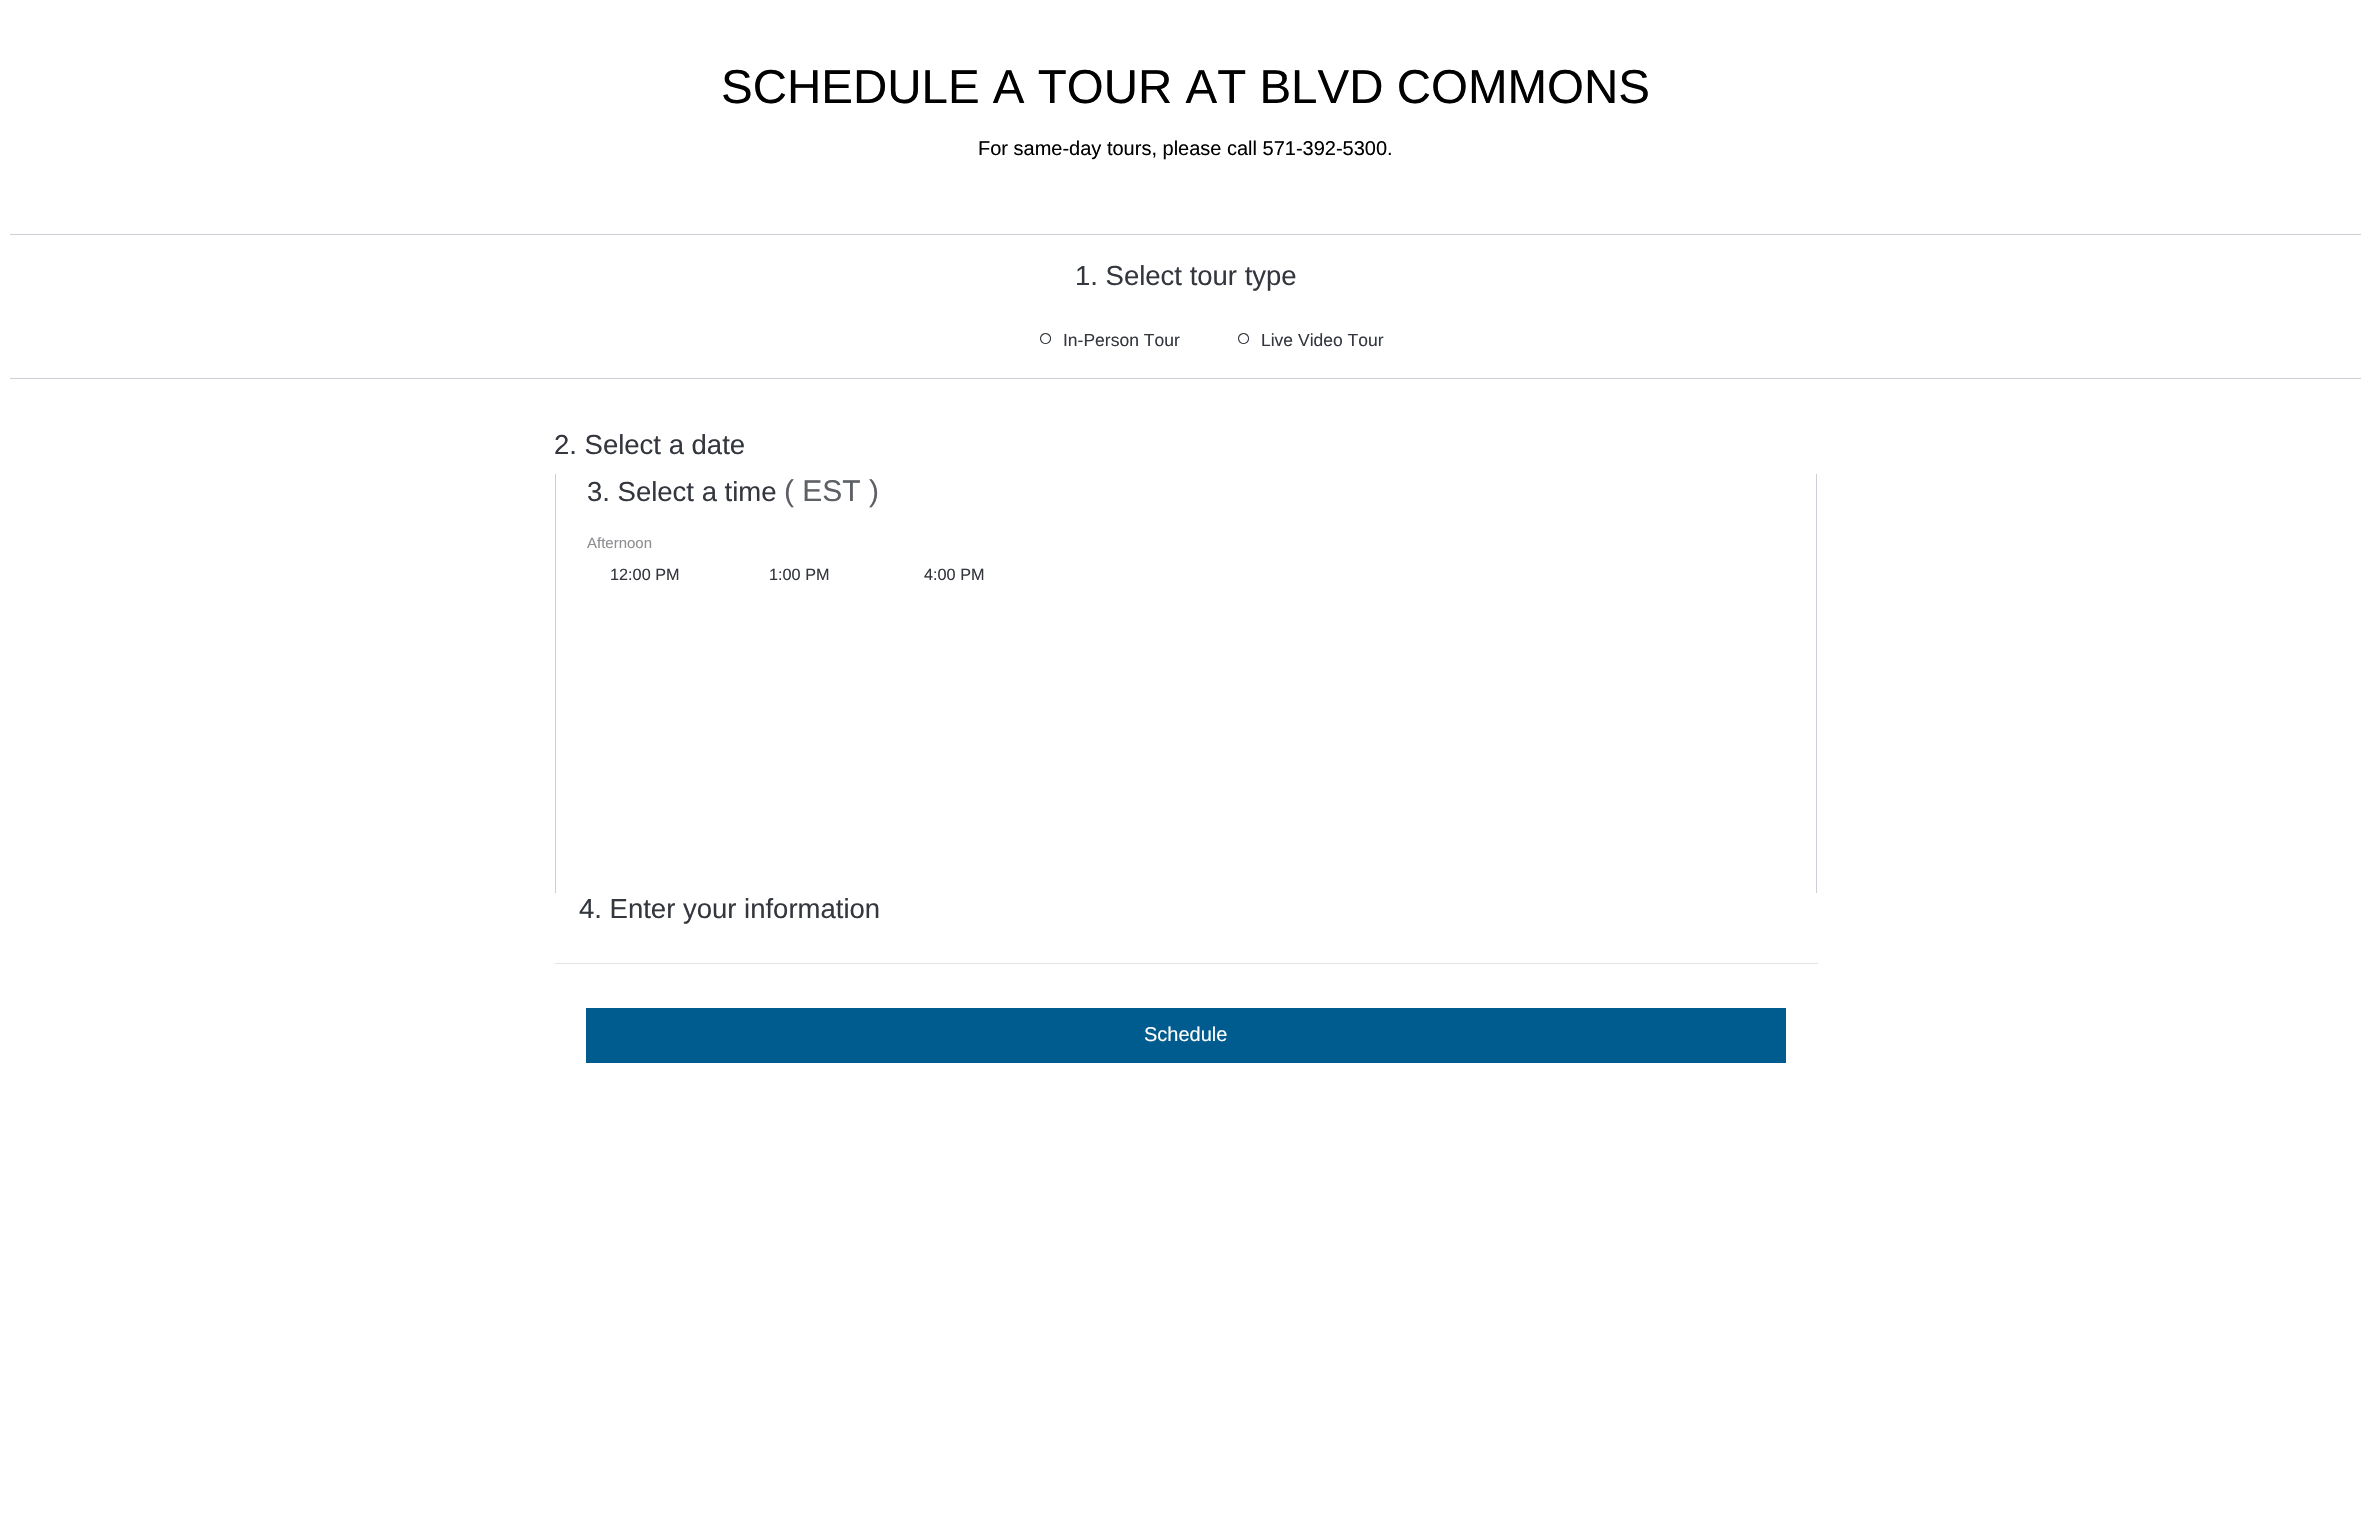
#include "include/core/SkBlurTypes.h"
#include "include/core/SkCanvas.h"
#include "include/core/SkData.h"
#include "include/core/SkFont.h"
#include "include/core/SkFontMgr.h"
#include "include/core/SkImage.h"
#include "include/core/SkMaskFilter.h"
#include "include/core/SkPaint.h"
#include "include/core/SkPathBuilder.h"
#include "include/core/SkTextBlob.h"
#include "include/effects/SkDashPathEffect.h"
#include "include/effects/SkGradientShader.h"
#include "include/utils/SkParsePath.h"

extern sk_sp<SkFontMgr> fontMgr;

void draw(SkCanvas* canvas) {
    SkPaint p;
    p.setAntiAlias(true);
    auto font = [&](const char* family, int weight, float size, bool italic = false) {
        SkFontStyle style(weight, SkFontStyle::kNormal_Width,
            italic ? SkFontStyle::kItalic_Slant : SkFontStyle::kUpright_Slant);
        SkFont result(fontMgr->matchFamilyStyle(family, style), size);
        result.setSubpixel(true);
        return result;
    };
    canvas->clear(0xFFFFFFFF);
    p.setColor(0xFFCECED7);
    canvas->drawRect(SkRect::MakeLTRB(10, 378, 2361, 379), p);
    auto font1 = font("Liberation Sans", 400, 47.5f);
    p.setColor(0xFF000000);
    canvas->drawString("SCHEDULE A TOUR AT BLVD COMMONS", 721, 103, font1, p);
    auto font2 = font("Liberation Sans", 400, 20);
    canvas->drawString("For same-day tours, please call 571-392-5300.", 978, 155, font2, p);
    p.setColor(0xFFCECED7);
    canvas->drawRect(SkRect::MakeLTRB(10, 234, 2361, 235), p);
    auto font3 = font("Liberation Sans", 400, 27.5f);
    p.setColor(0xFF34383E);
    canvas->drawString("1. Select tour type", 1075, 285, font3, p);
    auto font4 = font("Liberation Sans", 400, 25);
    canvas->drawString("○", 1038, 346, font4, p);
    auto font5 = font("Liberation Sans", 400, 17.5f);
    canvas->drawString("In-Person Tour", 1063, 346, font5, p);
    canvas->drawString("○", 1236, 346, font4, p);
    canvas->drawString("Live Video Tour", 1261, 346, font5, p);
    canvas->drawString("2. Select a date", 554, 454, font3, p);
    p.setColor(0xFFCECED7);
    canvas->drawRect(SkRect::MakeLTRB(1816, 474, 1817, 893), p);
    canvas->drawRect(SkRect::MakeLTRB(555, 474, 556, 893), p);
    p.setColor(0xFF34383E);
    canvas->drawString("3. Select a time", 587, 501, font3, p);
    auto font6 = font("Liberation Sans", 400, 30);
    p.setColor(0xFF5D6065);
    canvas->drawString("( EST )", 784, 501, font6, p);
    auto font7 = font("Liberation Sans", 400, 15);
    p.setColor(0xFF8E8E93);
    canvas->drawString("Afternoon", 587, 548, font7, p);
    auto font8 = font("Liberation Sans", 400, 16.25f);
    p.setColor(0xFF34383E);
    {
        const struct { const char* s; float x, y; } items[] = {
            {"12:00 PM", 610, 580},
            {"1:00 PM", 769, 580},
            {"4:00 PM", 924, 580},
        };
        for (auto [s, x, y] : items) {
            canvas->drawString(s, x, y, font8, p);
        }
    }
    canvas->drawString("4. Enter your information", 579, 918, font3, p);
    p.setColor(0xFFE4E3E3);
    canvas->drawRect(SkRect::MakeLTRB(555, 963, 1818, 964), p);
    p.setColor(0xFF005B8E);
    canvas->drawRect(SkRect::MakeLTRB(586, 1008, 1786, 1063), p);
    p.setColor(0xFFFFFFFF);
    canvas->drawString("Schedule", 1144, 1041, font2, p);
}
